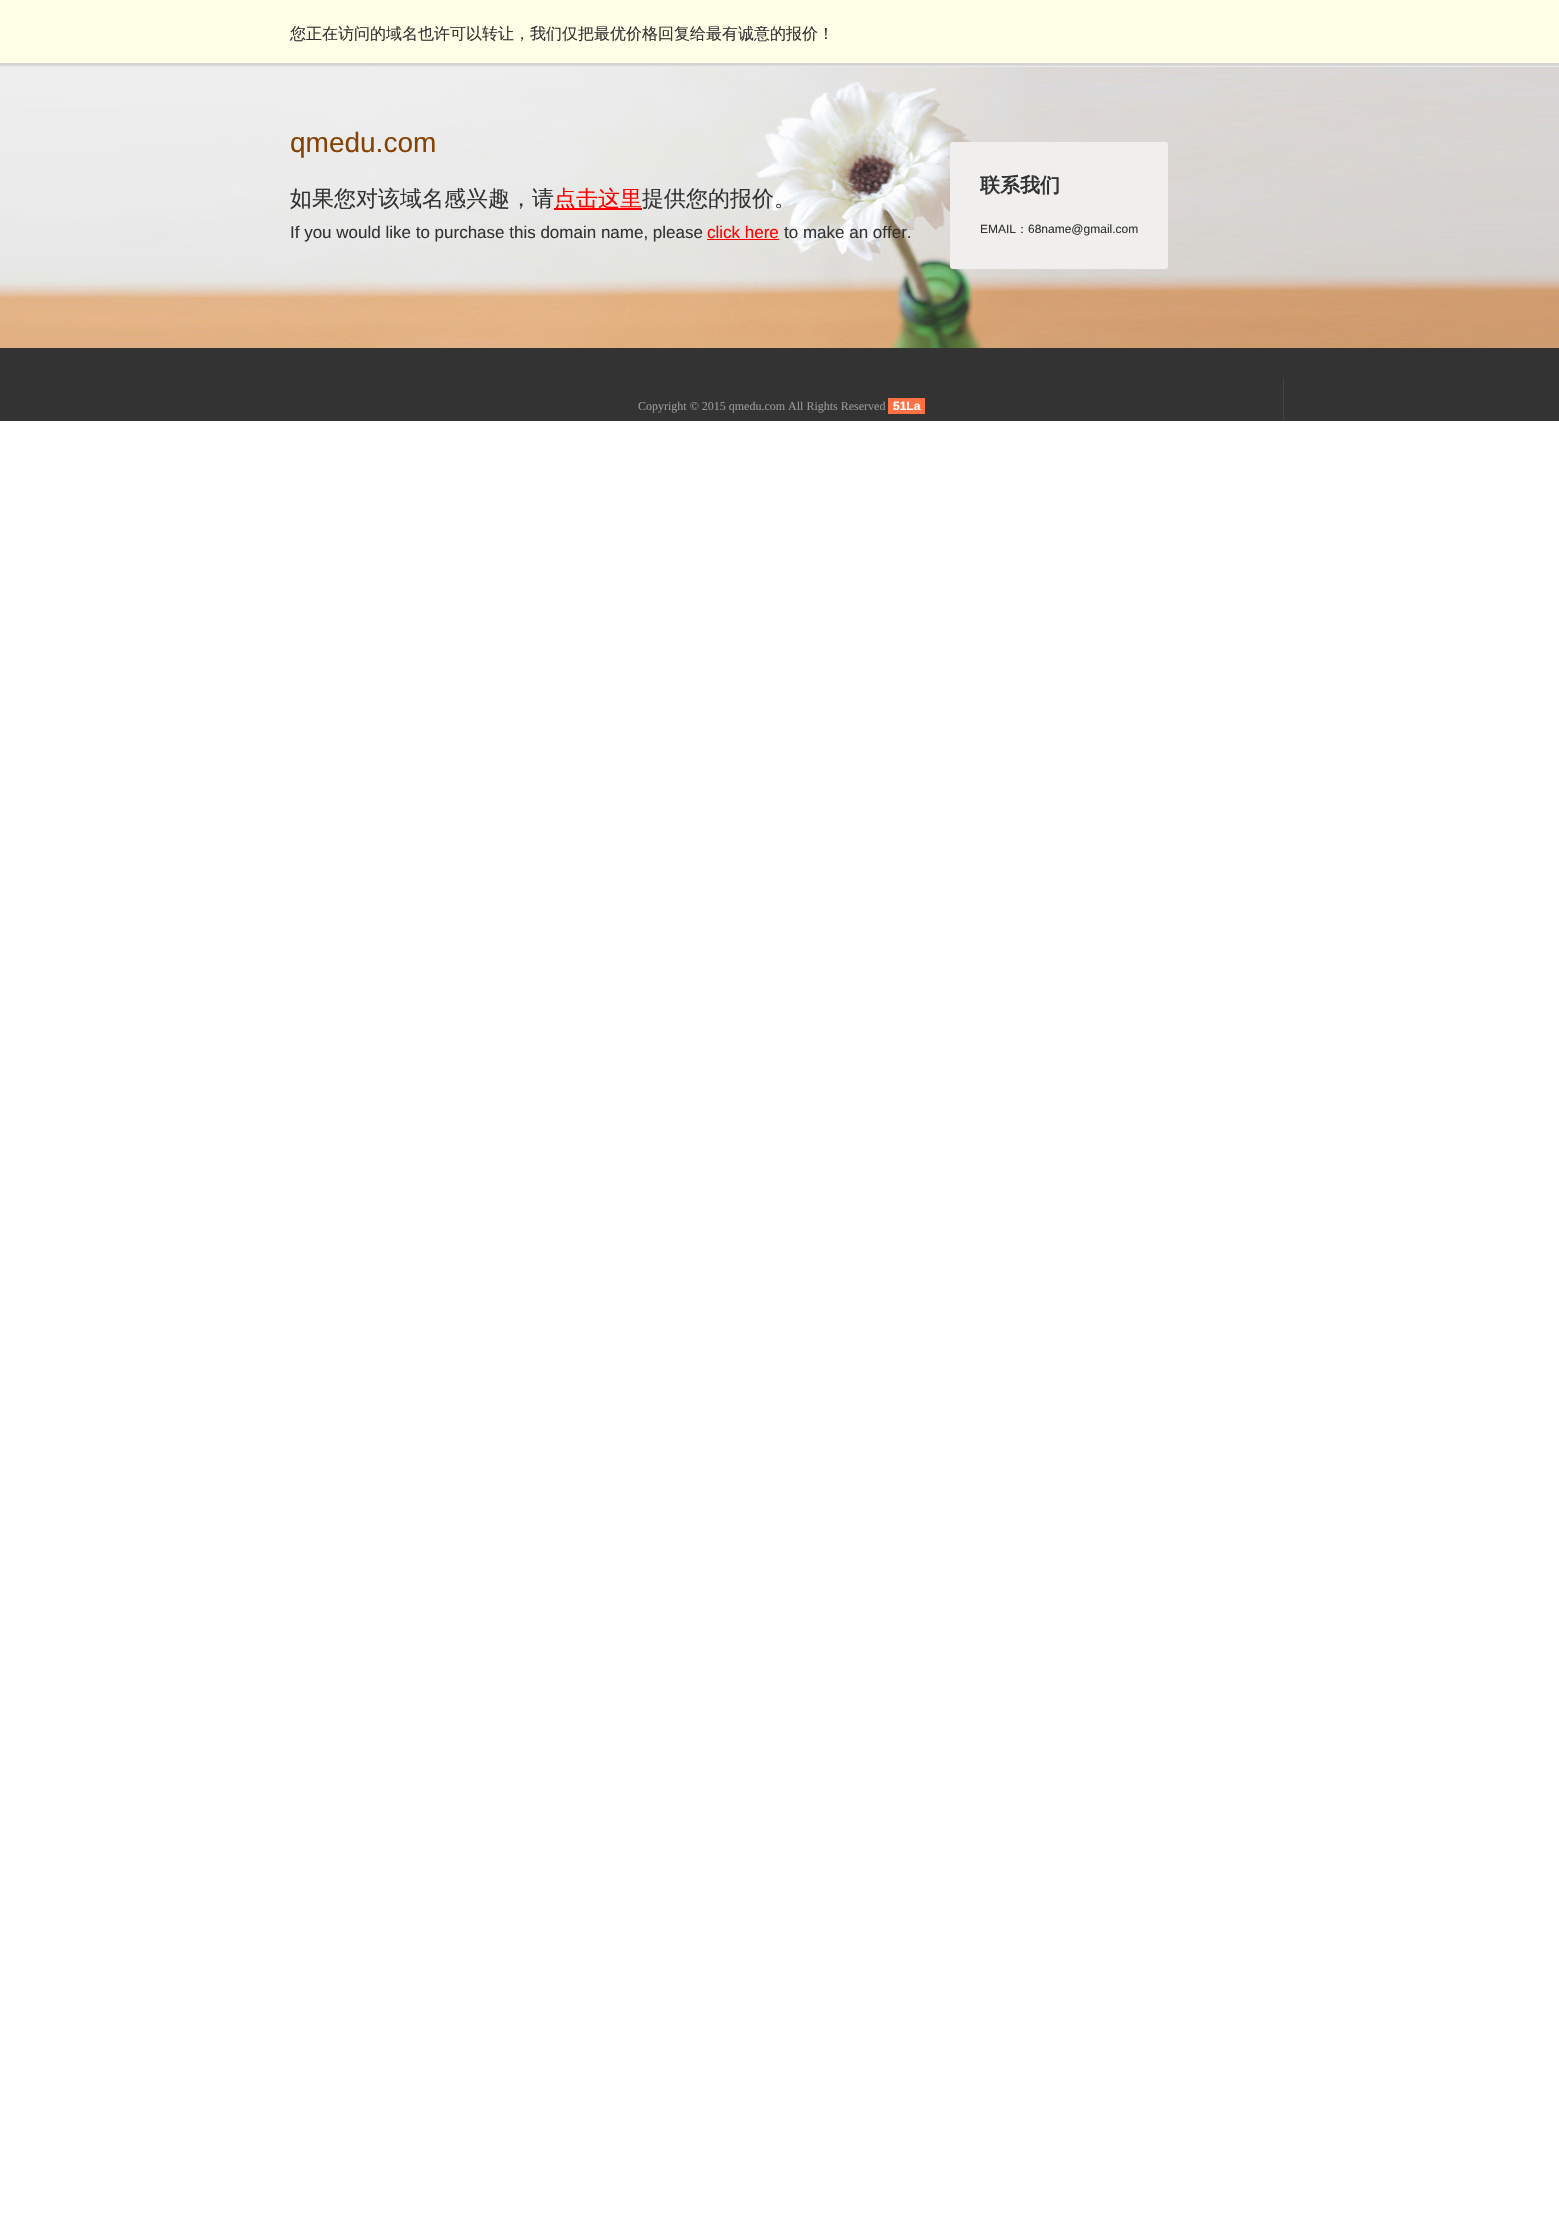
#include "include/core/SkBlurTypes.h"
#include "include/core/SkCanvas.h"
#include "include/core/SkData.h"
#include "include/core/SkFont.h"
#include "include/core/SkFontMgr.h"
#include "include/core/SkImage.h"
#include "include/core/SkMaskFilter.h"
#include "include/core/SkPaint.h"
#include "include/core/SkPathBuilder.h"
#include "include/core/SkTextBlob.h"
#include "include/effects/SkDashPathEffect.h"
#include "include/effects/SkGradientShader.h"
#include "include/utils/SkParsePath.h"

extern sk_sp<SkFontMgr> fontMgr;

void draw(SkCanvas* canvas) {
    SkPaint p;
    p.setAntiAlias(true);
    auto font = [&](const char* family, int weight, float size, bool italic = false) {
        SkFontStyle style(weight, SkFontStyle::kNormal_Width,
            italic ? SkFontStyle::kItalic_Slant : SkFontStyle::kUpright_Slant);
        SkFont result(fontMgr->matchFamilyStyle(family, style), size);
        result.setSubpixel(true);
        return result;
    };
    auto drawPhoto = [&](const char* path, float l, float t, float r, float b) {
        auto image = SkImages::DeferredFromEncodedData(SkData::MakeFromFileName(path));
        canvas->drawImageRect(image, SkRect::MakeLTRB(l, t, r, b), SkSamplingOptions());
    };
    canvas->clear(0xFFFFFFFF);
    drawPhoto("media/1.png", 0, 0, 1559, 67);
    auto font1 = font("WenQuanYi Zen Hei", 500, 16);
    p.setColor(0xFF333333);
    canvas->drawString("您正在访问的域名也许可以转让，我们仅把最优价格回复给最有诚意的报价！", 290, 39, font1, p);
    drawPhoto("media/2.png", 0, 67, 1559, 348);
    auto font2 = font("Liberation Sans", 400, 28);
    p.setColor(0xFF874102);
    canvas->drawString("qmedu.com", 290, 152, font2, p);
    auto font3 = font("WenQuanYi Zen Hei", 500, 22);
    p.setColor(0xFF333333);
    canvas->drawString("如果您对该域名感兴趣，请", 290, 206, font3, p);
    p.setColor(0xFFFF0000);
    canvas->drawRect(SkRect::MakeLTRB(554, 208, 642, 210), p);
    canvas->drawString("点击这里", 554, 206, font3, p);
    p.setColor(0xFF333333);
    canvas->drawString("提供您的报价。", 642, 206, font3, p);
    auto font4 = font("Liberation Sans", 400, 17);
    canvas->drawString("If you would like to purchase this domain name, please", 290, 238, font4, p);
    p.setColor(0xFFFF0000);
    canvas->drawString("click here", 707, 238, font4, p);
    canvas->drawRect(SkRect::MakeLTRB(707, 239, 779, 240), p);
    p.setColor(0xFF333333);
    canvas->drawString("to make an offer.", 784, 238, font4, p);
    p.setColor(0xFFF0EFED);
    canvas->drawRoundRect(SkRect::MakeLTRB(950, 142, 1168, 269), 3, 3, p);
    auto font5 = font("WenQuanYi Zen Hei", 700, 20);
    p.setColor(0xFF333333);
    canvas->drawString("联系我们", 980, 192, font5, p);
    auto font6 = font("Liberation Sans", 400, 12);
    canvas->drawString("EMAIL", 980, 233, font6, p);
    auto font7 = font("WenQuanYi Zen Hei", 500, 12);
    canvas->drawString("：", 1016, 233, font7, p);
    canvas->drawString("68name@gmail.com", 1028, 233, font6, p);
    canvas->drawRect(SkRect::MakeLTRB(0, 348, 1559, 421), p);
    p.setColor(0xFF444444);
    canvas->drawRect(SkRect::MakeLTRB(1283, 378, 1284, 421), p);
    auto font8 = font("Liberation Serif", 400, 12);
    p.setColor(0xFF999999);
    canvas->drawString("Copyright © 2015 qmedu.com All Rights Reserved", 638, 410, font8, p);
    p.setColor(0xFFFF7043);
    canvas->drawRect(SkRect::MakeLTRB(888, 398, 925, 414), p);
    auto font9 = font("Liberation Sans", 700, 12);
    p.setColor(0xFFFFFFFF);
    canvas->drawString("51La", 893, 410, font9, p);
}
